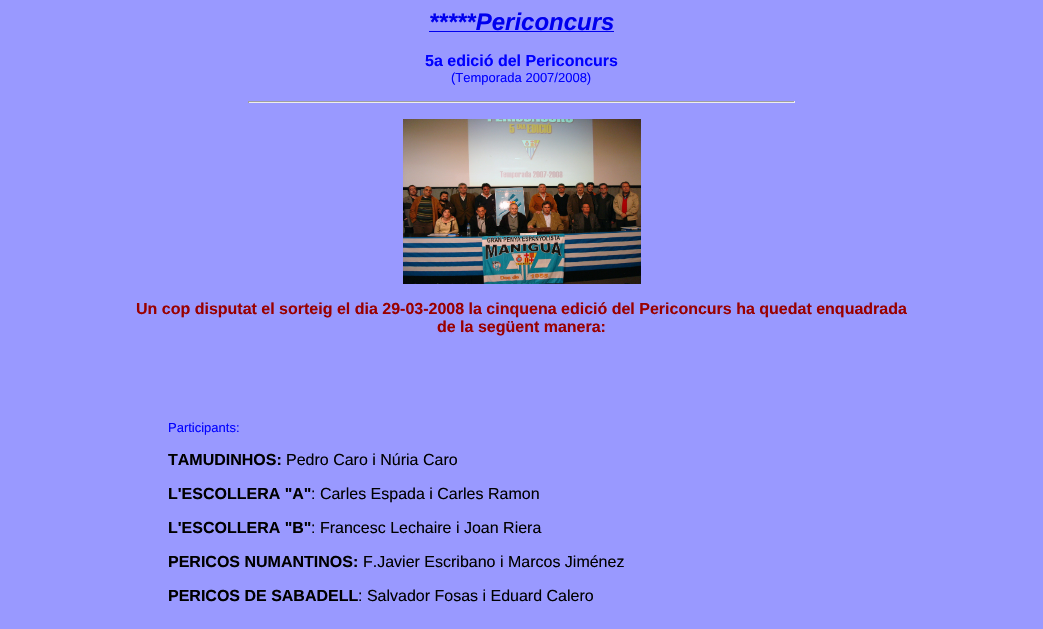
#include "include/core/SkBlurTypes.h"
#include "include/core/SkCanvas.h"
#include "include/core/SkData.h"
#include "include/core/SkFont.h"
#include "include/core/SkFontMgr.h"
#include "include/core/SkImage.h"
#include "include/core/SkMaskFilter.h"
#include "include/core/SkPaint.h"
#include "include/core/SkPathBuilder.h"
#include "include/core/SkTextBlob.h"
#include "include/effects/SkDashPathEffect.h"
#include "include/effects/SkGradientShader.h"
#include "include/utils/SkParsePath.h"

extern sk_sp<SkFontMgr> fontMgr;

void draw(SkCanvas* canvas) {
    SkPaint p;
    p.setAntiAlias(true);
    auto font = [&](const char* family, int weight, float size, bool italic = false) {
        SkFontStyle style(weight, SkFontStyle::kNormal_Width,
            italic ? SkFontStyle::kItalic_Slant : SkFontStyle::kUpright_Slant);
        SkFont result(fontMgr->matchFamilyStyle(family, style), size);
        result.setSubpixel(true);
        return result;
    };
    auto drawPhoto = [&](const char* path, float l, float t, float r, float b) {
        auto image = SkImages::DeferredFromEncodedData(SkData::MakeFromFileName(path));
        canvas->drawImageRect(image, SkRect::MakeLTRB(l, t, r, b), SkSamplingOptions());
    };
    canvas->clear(0xFF9999FF);
    auto font1 = font("Liberation Sans", 700, 24, true);
    p.setColor(0xFF0000EE);
    canvas->drawString("*****Periconcurs", 429, 30, font1, p);
    canvas->drawRect(SkRect::MakeLTRB(429, 31, 614, 32), p);
    auto font2 = font("Liberation Sans", 700, 16);
    p.setColor(0xFF0000FF);
    canvas->drawString("5a edició del Periconcurs", 425, 66, font2, p);
    auto font3 = font("Liberation Sans", 400, 13);
    canvas->drawString("(Temporada 2007/2008)", 451, 82, font3, p);
    {
        const struct { float l, t, r, b; SkColor color; } items[] = {
            {248, 101, 795, 102, 0xFF9F9F9F},
            {794, 101, 795, 103, 0xFFEEEEEE},
            {248, 102, 795, 103, 0xFFEEEEEE},
            {248, 101, 249, 103, 0xFF9F9F9F},
        };
        for (auto [l, t, r, b, color] : items) {
            p.setColor(color);
            canvas->drawRect(SkRect::MakeLTRB(l, t, r, b), p);
        }
    }
    drawPhoto("media/1.png", 403, 119, 641, 284);
    p.setColor(0xFF990000);
    canvas->drawString("Un cop disputat el sorteig el dia 29-03-2008 la cinquena edició del Periconcurs ha quedat enquadrada", 136, 314, font2, p);
    canvas->drawString("de la següent manera:", 437, 332, font2, p);
    p.setColor(0xFF0000FF);
    canvas->drawString("Participants:", 168, 432, font3, p);
    p.setColor(0xFF000000);
    canvas->drawString("TAMUDINHOS:", 168, 465, font2, p);
    auto font4 = font("Liberation Sans", 400, 16);
    canvas->drawString("Pedro Caro i Núria Caro", 286, 465, font4, p);
    canvas->drawString("L'ESCOLLERA \"A\"", 168, 499, font2, p);
    canvas->drawString(": Carles Espada i Carles Ramon", 311, 499, font4, p);
    canvas->drawString("L'ESCOLLERA \"B\"", 168, 533, font2, p);
    canvas->drawString(": Francesc Lechaire i Joan Riera", 311, 533, font4, p);
    canvas->drawString("PERICOS NUMANTINOS:", 168, 567, font2, p);
    canvas->drawString("F.Javier Escribano i Marcos Jiménez", 363, 567, font4, p);
    canvas->drawString("PERICOS DE SABADELL", 168, 601, font2, p);
    canvas->drawString(": Salvador Fosas i Eduard Calero", 358, 601, font4, p);
}
